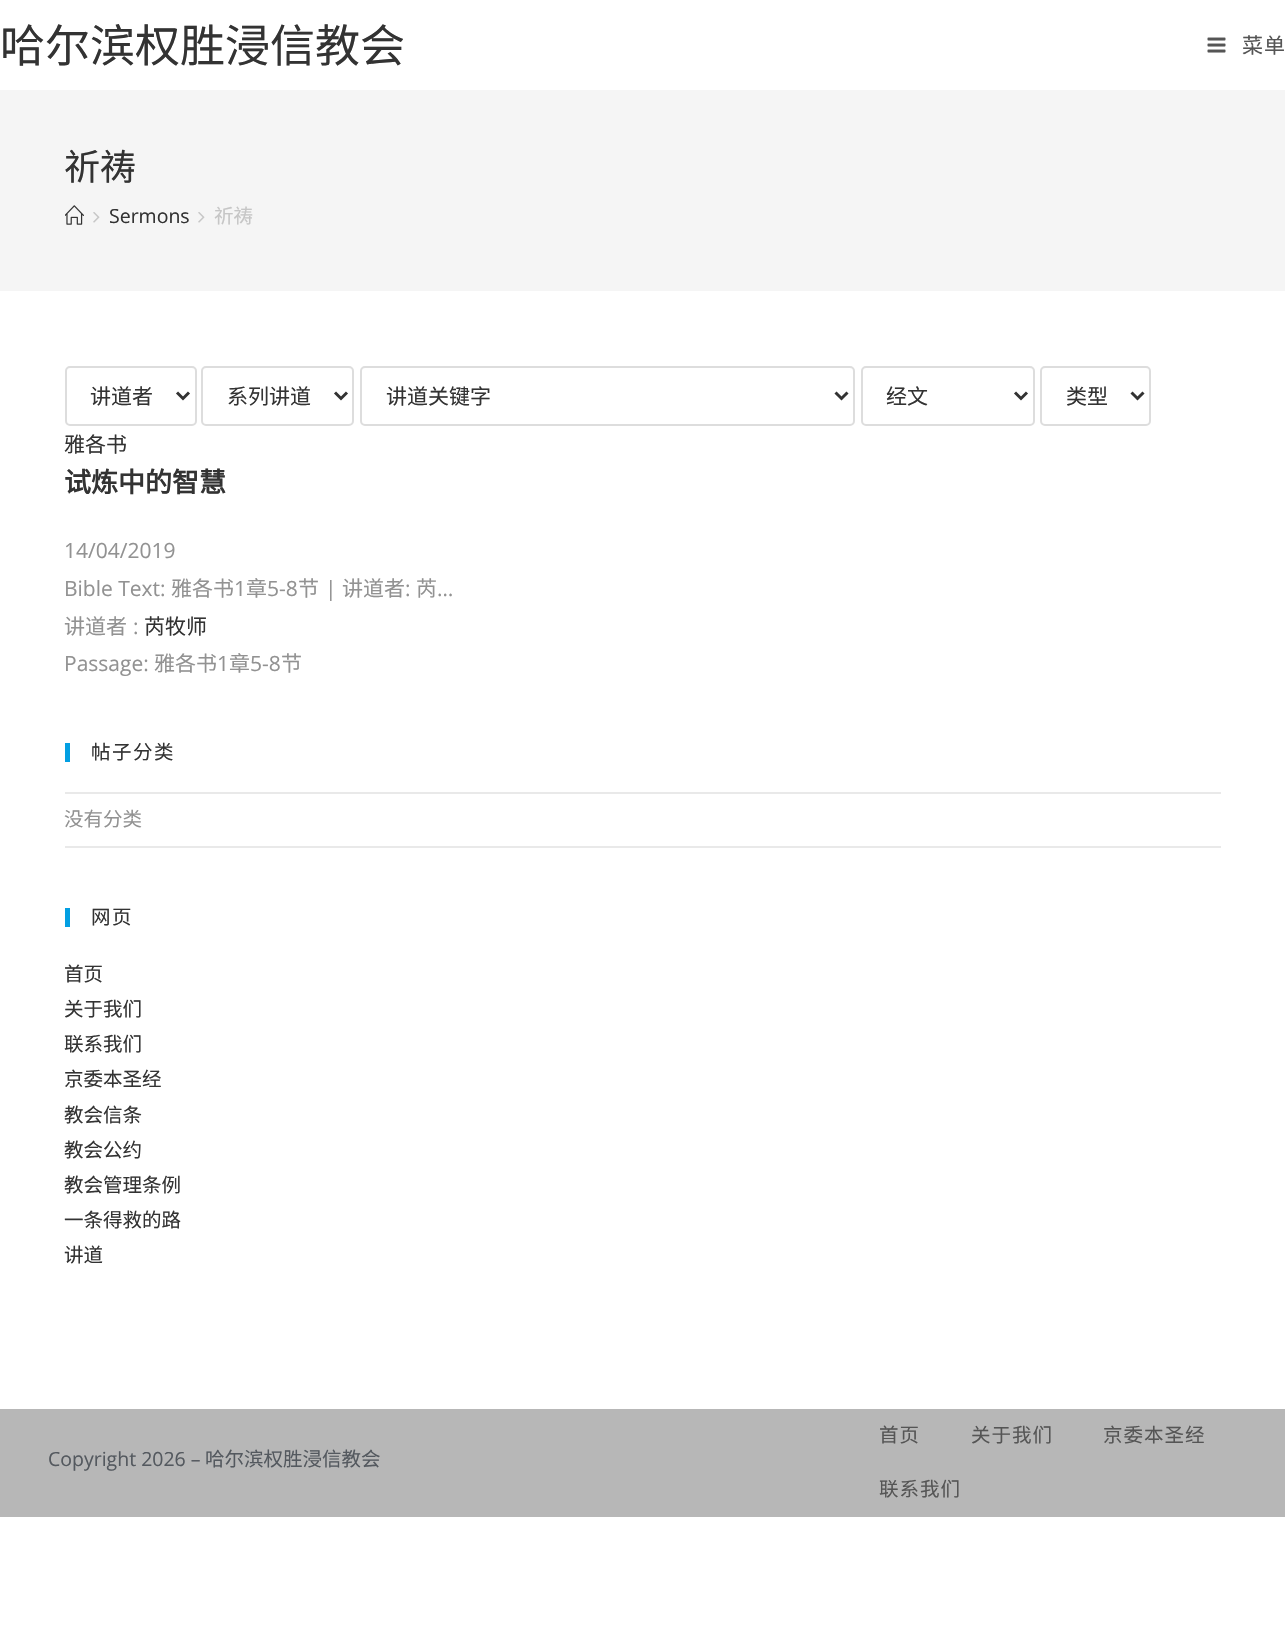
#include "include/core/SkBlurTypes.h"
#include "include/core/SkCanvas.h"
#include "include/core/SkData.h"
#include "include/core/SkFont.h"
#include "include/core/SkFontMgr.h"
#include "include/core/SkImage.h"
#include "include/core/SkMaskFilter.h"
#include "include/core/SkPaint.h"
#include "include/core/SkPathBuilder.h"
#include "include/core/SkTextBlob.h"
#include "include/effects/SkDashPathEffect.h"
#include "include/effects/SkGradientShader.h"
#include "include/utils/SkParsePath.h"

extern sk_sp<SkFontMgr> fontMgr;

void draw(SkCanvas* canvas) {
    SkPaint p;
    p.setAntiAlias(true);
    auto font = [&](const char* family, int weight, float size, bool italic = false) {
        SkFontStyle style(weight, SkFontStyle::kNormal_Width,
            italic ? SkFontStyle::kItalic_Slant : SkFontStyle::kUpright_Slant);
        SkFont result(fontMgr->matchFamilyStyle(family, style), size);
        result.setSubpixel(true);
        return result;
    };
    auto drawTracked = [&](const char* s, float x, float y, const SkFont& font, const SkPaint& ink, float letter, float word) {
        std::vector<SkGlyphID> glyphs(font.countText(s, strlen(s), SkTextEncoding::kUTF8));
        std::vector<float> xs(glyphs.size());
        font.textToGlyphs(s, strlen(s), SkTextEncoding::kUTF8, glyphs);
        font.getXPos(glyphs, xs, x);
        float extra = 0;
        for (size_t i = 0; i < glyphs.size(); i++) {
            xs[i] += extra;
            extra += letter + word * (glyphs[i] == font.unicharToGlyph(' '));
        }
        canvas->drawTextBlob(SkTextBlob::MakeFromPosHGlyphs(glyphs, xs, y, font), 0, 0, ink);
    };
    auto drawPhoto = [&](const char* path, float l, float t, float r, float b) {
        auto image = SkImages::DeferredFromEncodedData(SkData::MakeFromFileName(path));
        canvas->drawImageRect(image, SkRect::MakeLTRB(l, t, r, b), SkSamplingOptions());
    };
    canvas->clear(0xFFFFFFFF);
    auto font1 = font("Noto Sans CJK SC", 400, 45);
    p.setColor(0xFF333333);
    canvas->drawString("哈尔滨权胜浸信教会", 0, 62, font1, p);
    drawPhoto("media/1.png", 1207, 37, 1226, 53);
    auto font2 = font("Noto Sans CJK SC", 400, 21);
    p.setColor(0xFF555555);
    drawTracked("菜单", 1242, 53, font2, p, 1, 0);
    p.setColor(0xFFF5F5F5);
    canvas->drawRect(SkRect::MakeLTRB(0, 90, 1285, 291), p);
    auto font3 = font("Noto Sans CJK SC", 400, 36);
    p.setColor(0xFF333333);
    canvas->drawString("祈祷", 64, 180, font3, p);
    drawPhoto("media/2.png", 65, 205, 84, 225);
    drawPhoto("media/3.png", 93, 212, 100, 223);
    auto font4 = font("Open Sans", 400, 19.5f);
    canvas->drawString("Sermons", 109, 223, font4, p);
    drawPhoto("media/3.png", 198, 212, 205, 223);
    auto font5 = font("Noto Sans CJK SC", 400, 19.5f);
    p.setColor(0xFFC6C6C6);
    canvas->drawString("祈祷", 214, 223, font5, p);
    p.setStyle(SkPaint::kStroke_Style);
    p.setStrokeWidth(2);
    p.setColor(0xFFDDDDDD);
    canvas->drawRoundRect(SkRect::MakeLTRB(66, 367, 196, 425), 4, 4, p);
    p.setStrokeWidth(3);
    p.setColor(0xFF333333);
    canvas->drawPath(SkPathBuilder().moveTo(177, 392.5f).lineTo(183, 398.5f).lineTo(189, 392.5f).detach(), p);
    p.setStyle(SkPaint::kFill_Style);
    canvas->drawString("讲道者", 90, 404, font2, p);
    p.setStyle(SkPaint::kStroke_Style);
    p.setStrokeWidth(2);
    p.setColor(0xFFDDDDDD);
    canvas->drawRoundRect(SkRect::MakeLTRB(202, 367, 353, 425), 4, 4, p);
    p.setStrokeWidth(3);
    p.setColor(0xFF333333);
    canvas->drawPath(SkPathBuilder().moveTo(335, 392.5f).lineTo(341, 398.5f).lineTo(347, 392.5f).detach(), p);
    p.setStyle(SkPaint::kFill_Style);
    canvas->drawString("系列讲道", 227, 404, font2, p);
    p.setStyle(SkPaint::kStroke_Style);
    p.setStrokeWidth(2);
    p.setColor(0xFFDDDDDD);
    canvas->drawRoundRect(SkRect::MakeLTRB(361, 367, 854, 425), 4, 4, p);
    p.setStrokeWidth(3);
    p.setColor(0xFF333333);
    canvas->drawPath(SkPathBuilder().moveTo(835.5f, 392.5f).lineTo(841.5f, 398.5f).lineTo(847.5f, 392.5f).detach(), p);
    p.setStyle(SkPaint::kFill_Style);
    canvas->drawString("讲道关键字", 386, 404, font2, p);
    p.setStyle(SkPaint::kStroke_Style);
    p.setStrokeWidth(2);
    p.setColor(0xFFDDDDDD);
    canvas->drawRoundRect(SkRect::MakeLTRB(862, 367, 1034, 425), 4, 4, p);
    p.setStrokeWidth(3);
    p.setColor(0xFF333333);
    canvas->drawPath(SkPathBuilder().moveTo(1015, 392.5f).lineTo(1021, 398.5f).lineTo(1027, 392.5f).detach(), p);
    p.setStyle(SkPaint::kFill_Style);
    canvas->drawString("经文", 886, 404, font2, p);
    p.setStyle(SkPaint::kStroke_Style);
    p.setStrokeWidth(2);
    p.setColor(0xFFDDDDDD);
    canvas->drawRoundRect(SkRect::MakeLTRB(1041, 367, 1150, 425), 4, 4, p);
    p.setStrokeWidth(3);
    p.setColor(0xFF333333);
    canvas->drawPath(SkPathBuilder().moveTo(1131.5f, 392.5f).lineTo(1137.5f, 398.5f).lineTo(1143.5f, 392.5f).detach(), p);
    p.setStyle(SkPaint::kFill_Style);
    canvas->drawString("类型", 1066, 404, font2, p);
    canvas->drawString("雅各书", 64, 452, font2, p);
    auto font6 = font("Noto Sans CJK SC", 700, 27);
    canvas->drawString("试炼中的智慧", 64, 492, font6, p);
    auto font7 = font("Open Sans", 400, 21);
    p.setColor(0xFF929292);
    canvas->drawString("14/04/2019", 64, 558, font7, p);
    canvas->drawString("Bible Text:", 64, 596, font7, p);
    canvas->drawString("雅各书", 171, 596, font2, p);
    canvas->drawString("1", 234, 596, font7, p);
    canvas->drawString("章", 246, 596, font2, p);
    canvas->drawString("5-8", 267, 596, font7, p);
    canvas->drawString("节", 298, 596, font2, p);
    canvas->drawString("|", 325, 596, font7, p);
    canvas->drawString("讲道者", 342, 596, font2, p);
    canvas->drawString(":", 405, 596, font7, p);
    canvas->drawString("芮", 416, 596, font2, p);
    canvas->drawString("…", 437, 596, font7, p);
    canvas->drawString("讲道者", 64, 634, font2, p);
    canvas->drawString(":", 133, 634, font7, p);
    p.setColor(0xFF333333);
    canvas->drawString("芮牧师", 144, 634, font2, p);
    p.setColor(0xFF929292);
    canvas->drawString("Passage:", 64, 671, font7, p);
    canvas->drawString("雅各书", 154, 671, font2, p);
    canvas->drawString("1", 217, 671, font7, p);
    canvas->drawString("章", 229, 671, font2, p);
    canvas->drawString("5-8", 250, 671, font7, p);
    canvas->drawString("节", 281, 671, font2, p);
    p.setColor(0xFF029FE2);
    canvas->drawRect(SkRect::MakeLTRB(65, 743, 70, 762), p);
    p.setColor(0xFF333333);
    drawTracked("帖子分类", 91, 759, font5, p, 1.5f, 0);
    p.setColor(0xFFE9E9E9);
    canvas->drawRect(SkRect::MakeLTRB(65, 792, 1221, 794), p);
    canvas->drawRect(SkRect::MakeLTRB(65, 846, 1221, 848), p);
    p.setColor(0xFF929292);
    canvas->drawString("没有分类", 64, 826, font5, p);
    p.setColor(0xFF029FE2);
    canvas->drawRect(SkRect::MakeLTRB(65, 908, 70, 927), p);
    p.setColor(0xFF333333);
    drawTracked("网页", 91, 924, font5, p, 1.5f, 0);
    {
        const struct { const char* s; float x, y; } items[] = {
            {"首页", 64, 981},
            {"关于我们", 64, 1016},
            {"联系我们", 64, 1051},
            {"京委本圣经", 64, 1086},
            {"教会信条", 64, 1122},
            {"教会公约", 64, 1157},
            {"教会管理条例", 64, 1192},
            {"一条得救的路", 64, 1227},
            {"讲道", 64, 1262},
        };
        for (auto [s, x, y] : items) {
            canvas->drawString(s, x, y, font5, p);
        }
    }
    p.setColor(0xFFB7B7B7);
    canvas->drawRect(SkRect::MakeLTRB(0, 1409, 1285, 1517), p);
    p.setColor(0xFF54595F);
    canvas->drawString("Copyright 2026 –", 48, 1466, font4, p);
    canvas->drawString("哈尔滨权胜浸信教会", 205, 1466, font5, p);
    p.setColor(0xFF555555);
    {
        const struct { const char* s; float x, y; } items[] = {
            {"首页", 879, 1442},
            {"关于我们", 971, 1442},
            {"京委本圣经", 1103, 1442},
            {"联系我们", 879, 1496},
        };
        for (auto [s, x, y] : items) {
            drawTracked(s, x, y, font5, p, 1, 0);
        }
    }
}
